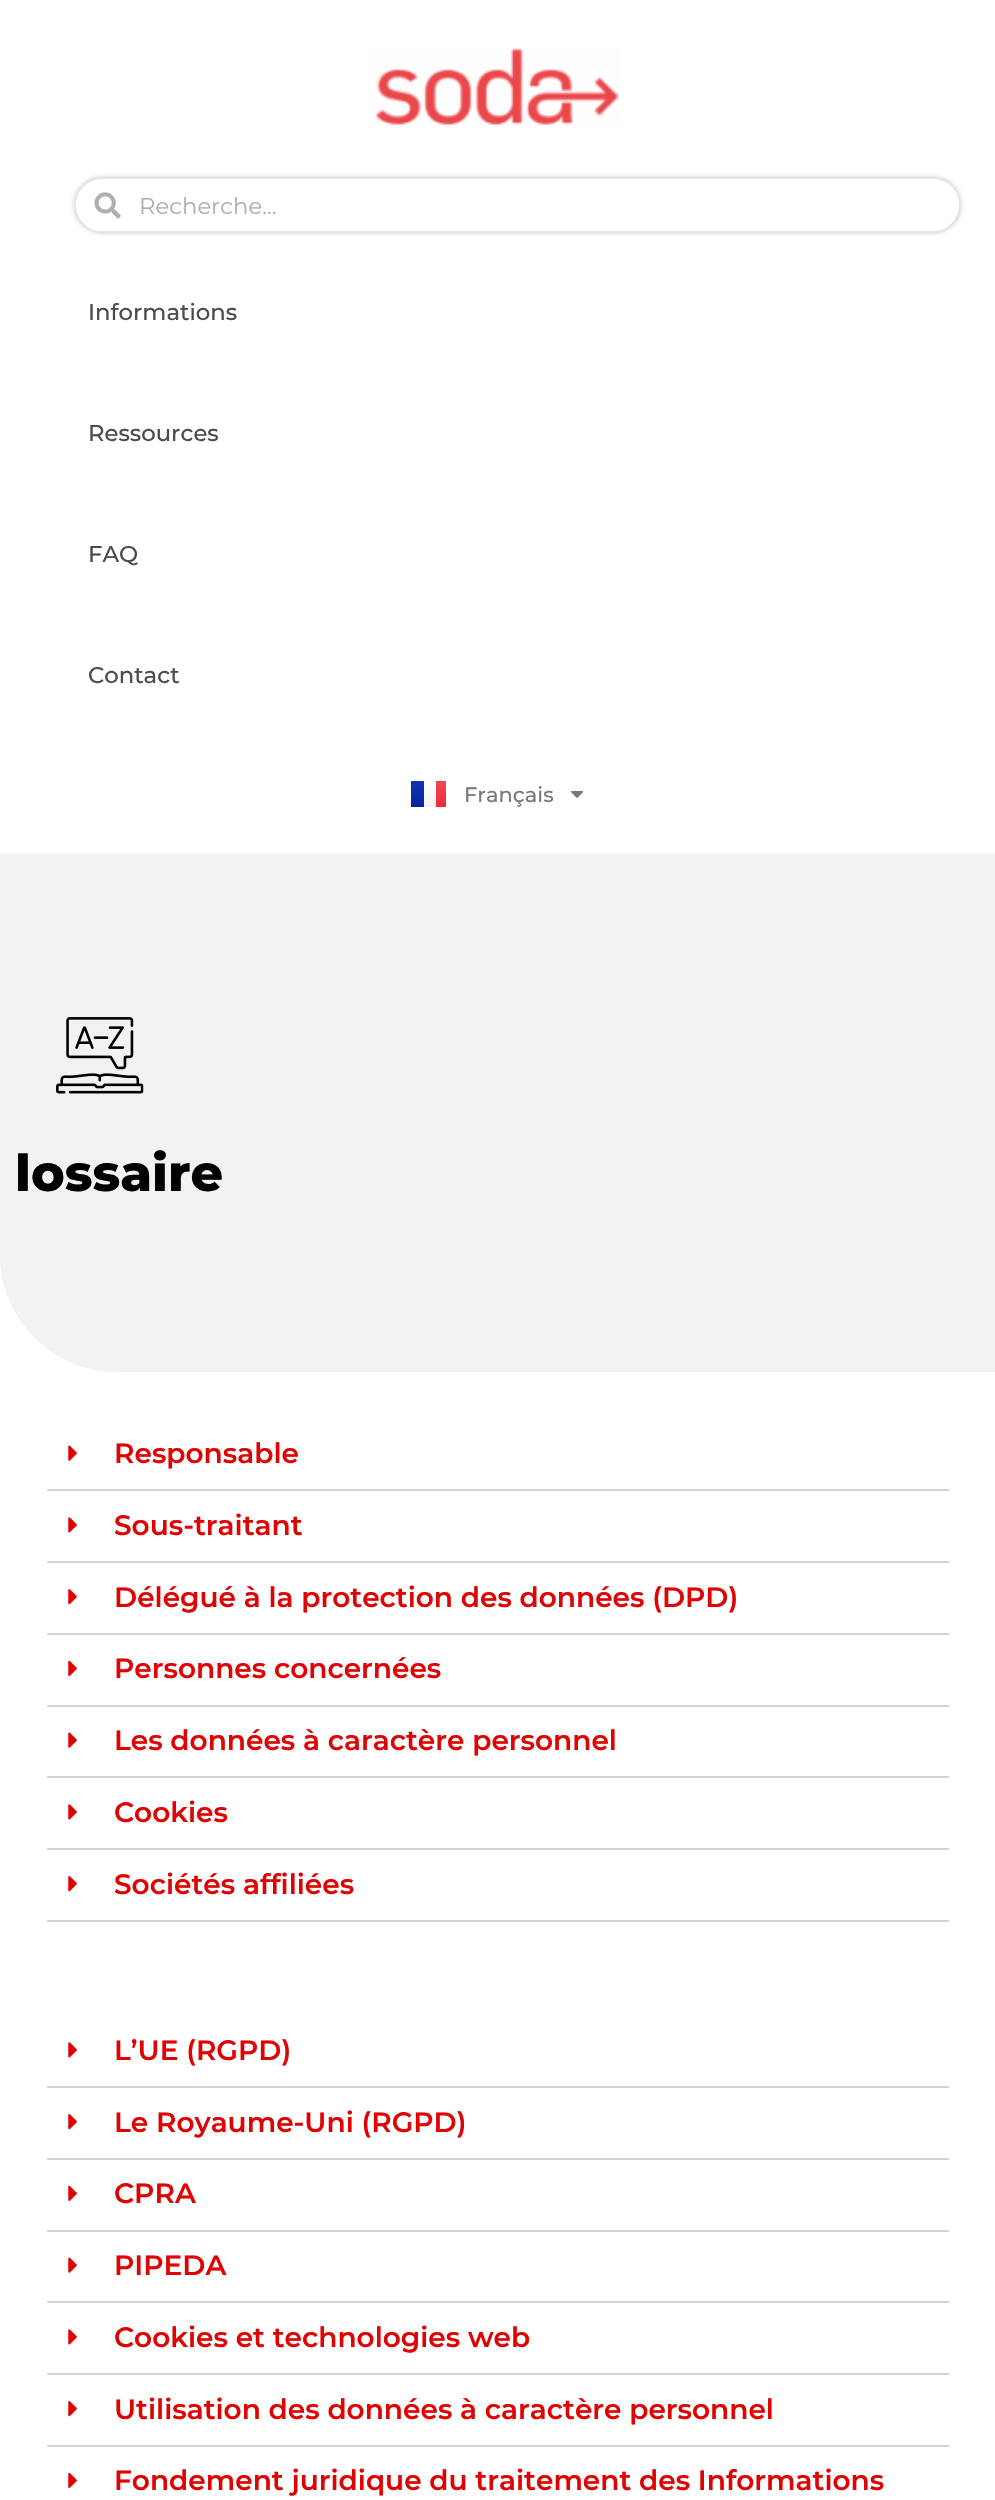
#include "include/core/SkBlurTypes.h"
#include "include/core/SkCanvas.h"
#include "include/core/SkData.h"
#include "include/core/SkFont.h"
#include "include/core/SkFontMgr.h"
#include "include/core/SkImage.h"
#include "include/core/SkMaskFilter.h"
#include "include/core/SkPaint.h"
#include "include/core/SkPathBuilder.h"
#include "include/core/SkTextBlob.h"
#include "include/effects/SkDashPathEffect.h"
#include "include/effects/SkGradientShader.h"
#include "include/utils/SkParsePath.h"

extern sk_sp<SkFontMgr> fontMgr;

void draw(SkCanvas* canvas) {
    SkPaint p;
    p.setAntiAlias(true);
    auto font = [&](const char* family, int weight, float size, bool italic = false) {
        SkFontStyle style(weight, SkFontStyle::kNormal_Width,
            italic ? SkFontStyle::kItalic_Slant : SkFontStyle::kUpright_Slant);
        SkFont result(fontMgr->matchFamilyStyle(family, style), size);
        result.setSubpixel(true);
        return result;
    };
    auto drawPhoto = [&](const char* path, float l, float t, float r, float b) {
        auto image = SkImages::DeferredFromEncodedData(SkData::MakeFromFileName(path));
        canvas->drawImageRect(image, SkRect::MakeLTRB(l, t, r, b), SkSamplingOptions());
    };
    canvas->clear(0xFFFFFFFF);
    drawPhoto("media/1.png", 374, 48, 620, 126);
    p.setColor(0x33000000);
    p.setMaskFilter(SkMaskFilter::MakeBlur(kNormal_SkBlurStyle, 2));
    canvas->drawRoundRect(SkRect::MakeLTRB(74, 177, 961, 233), 28, 28, p);
    p.setMaskFilter(nullptr);
    p.setColor(0xFFFFFFFF);
    canvas->drawRoundRect(SkRect::MakeLTRB(74, 177, 961, 233), 28, 28, p);
    p.setStyle(SkPaint::kStroke_Style);
    p.setStrokeWidth(2);
    p.setColor(0x78C8C8C8);
    canvas->drawRoundRect(SkRect::MakeLTRB(75, 178, 960, 232), 27, 27, p);
    drawPhoto("media/2.png", 94, 192, 121, 219);
    auto font1 = font("Montserrat", 400, 22.75f);
    p.setStyle(SkPaint::kFill_Style);
    p.setColor(0xFFAFAFAF);
    canvas->drawString("Recherche...", 139, 214, font1, p);
    auto font2 = font("Montserrat", 500, 22.75f);
    p.setColor(0xFF4C4C4C);
    {
        const struct { const char* s; float x, y; } items[] = {
            {"Informations", 88, 320},
            {"Ressources", 88, 441},
            {"FAQ", 88, 562},
            {"Contact", 88, 683},
        };
        for (auto [s, x, y] : items) {
            canvas->drawString(s, x, y, font2, p);
        }
    }
    {
        const SkColor colors[] = {0xFF1035BB, 0xFF042396};
        const float stops[] = {0, 1};
        const SkPoint ends[] = {{417, 781}, {417, 807}};
        p.setShader(SkGradientShader::MakeLinear(ends, colors, stops, 2, SkTileMode::kClamp));
        p.setAlpha(255);
    }
    canvas->drawRect(SkRect::MakeLTRB(411, 781, 424, 807), p);
    {
        const SkColor colors[] = {0xFFFFFFFF, 0xFFF0F0F0};
        const float stops[] = {0, 1};
        const SkPoint ends[] = {{430, 781}, {430, 807}};
        p.setShader(SkGradientShader::MakeLinear(ends, colors, stops, 2, SkTileMode::kClamp));
        p.setAlpha(255);
    }
    canvas->drawRect(SkRect::MakeLTRB(424, 785, 436, 807), p);
    {
        const SkColor colors[] = {0xFFF44653, 0xFFEE2A39};
        const float stops[] = {0, 1};
        const SkPoint ends[] = {{438, 781}, {438, 807}};
        p.setShader(SkGradientShader::MakeLinear(ends, colors, stops, 2, SkTileMode::kClamp));
        p.setAlpha(255);
    }
    canvas->drawRect(SkRect::MakeLTRB(436, 781, 446, 807), p);
    auto font3 = font("Montserrat", 500, 21);
    p.setShader(nullptr);
    p.setColor(0xFF7A7A7A);
    canvas->drawString("Français", 464, 802, font3, p);
    drawPhoto("media/3.png", 571, 791, 584, 798);
    p.setColor(0xFFF2F2F2);
    canvas->drawPath(SkPathBuilder().moveTo(0, 854).lineTo(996, 854).lineTo(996, 1372).lineTo(117, 1372).cubicTo(52.5f, 1372, 0, 1319.5f, 0, 1255).close().detach(), p);
    drawPhoto("media/4.png", 56, 1017, 144, 1094);
    auto font4 = font("Montserrat", 800, 50.75f);
    p.setColor(0xFF000000);
    canvas->drawString("lossaire", 15, 1191, font4, p);
    p.setColor(0xFFD4D4D4);
    canvas->drawRect(SkRect::MakeLTRB(47, 1489, 949, 1491), p);
    drawPhoto("media/5.png", 68, 1445, 77, 1461);
    auto font5 = font("Montserrat", 600, 28);
    p.setColor(0xFFE00303);
    canvas->drawString("Responsable", 114, 1463, font5, p);
    p.setColor(0xFFD4D4D4);
    canvas->drawRect(SkRect::MakeLTRB(47, 1561, 949, 1563), p);
    drawPhoto("media/6.png", 68, 1517, 77, 1533);
    p.setColor(0xFFE00303);
    canvas->drawString("Sous-traitant", 114, 1535, font5, p);
    p.setColor(0xFFD4D4D4);
    canvas->drawRect(SkRect::MakeLTRB(47, 1633, 949, 1635), p);
    drawPhoto("media/7.png", 68, 1589, 77, 1605);
    p.setColor(0xFFE00303);
    canvas->drawString("Délégué à la protection des données (DPD)", 114, 1607, font5, p);
    p.setColor(0xFFD4D4D4);
    canvas->drawRect(SkRect::MakeLTRB(47, 1705, 949, 1707), p);
    drawPhoto("media/8.png", 68, 1660, 77, 1676);
    p.setColor(0xFFE00303);
    canvas->drawString("Personnes concernées", 114, 1678, font5, p);
    p.setColor(0xFFD4D4D4);
    canvas->drawRect(SkRect::MakeLTRB(47, 1776, 949, 1778), p);
    drawPhoto("media/5.png", 68, 1732, 77, 1748);
    p.setColor(0xFFE00303);
    canvas->drawString("Les données à caractère personnel", 114, 1750, font5, p);
    p.setColor(0xFFD4D4D4);
    canvas->drawRect(SkRect::MakeLTRB(47, 1848, 949, 1850), p);
    drawPhoto("media/6.png", 68, 1804, 77, 1820);
    p.setColor(0xFFE00303);
    canvas->drawString("Cookies", 114, 1822, font5, p);
    p.setColor(0xFFD4D4D4);
    canvas->drawRect(SkRect::MakeLTRB(47, 1920, 949, 1922), p);
    drawPhoto("media/7.png", 68, 1876, 77, 1892);
    p.setColor(0xFFE00303);
    canvas->drawString("Sociétés affiliées", 114, 1894, font5, p);
    p.setColor(0xFFD4D4D4);
    canvas->drawRect(SkRect::MakeLTRB(47, 2086, 949, 2088), p);
    drawPhoto("media/6.png", 68, 2042, 77, 2058);
    p.setColor(0xFFE00303);
    canvas->drawString("L’UE (RGPD)", 114, 2060, font5, p);
    p.setColor(0xFFD4D4D4);
    canvas->drawRect(SkRect::MakeLTRB(47, 2158, 949, 2160), p);
    drawPhoto("media/7.png", 68, 2114, 77, 2130);
    p.setColor(0xFFE00303);
    canvas->drawString("Le Royaume-Uni (RGPD)", 114, 2132, font5, p);
    p.setColor(0xFFD4D4D4);
    canvas->drawRect(SkRect::MakeLTRB(47, 2230, 949, 2232), p);
    drawPhoto("media/8.png", 68, 2185, 77, 2201);
    p.setColor(0xFFE00303);
    canvas->drawString("CPRA", 114, 2203, font5, p);
    p.setColor(0xFFD4D4D4);
    canvas->drawRect(SkRect::MakeLTRB(47, 2301, 949, 2303), p);
    drawPhoto("media/5.png", 68, 2257, 77, 2273);
    p.setColor(0xFFE00303);
    canvas->drawString("PIPEDA", 114, 2275, font5, p);
    p.setColor(0xFFD4D4D4);
    canvas->drawRect(SkRect::MakeLTRB(47, 2373, 949, 2375), p);
    drawPhoto("media/6.png", 68, 2329, 77, 2345);
    p.setColor(0xFFE00303);
    canvas->drawString("Cookies et technologies web", 114, 2347, font5, p);
    p.setColor(0xFFD4D4D4);
    canvas->drawRect(SkRect::MakeLTRB(47, 2445, 949, 2447), p);
    drawPhoto("media/7.png", 68, 2401, 77, 2417);
    p.setColor(0xFFE00303);
    canvas->drawString("Utilisation des données à caractère personnel", 114, 2419, font5, p);
    drawPhoto("media/8.png", 68, 2472, 77, 2488);
    canvas->drawString("Fondement juridique du traitement des Informations", 114, 2490, font5, p);
}
